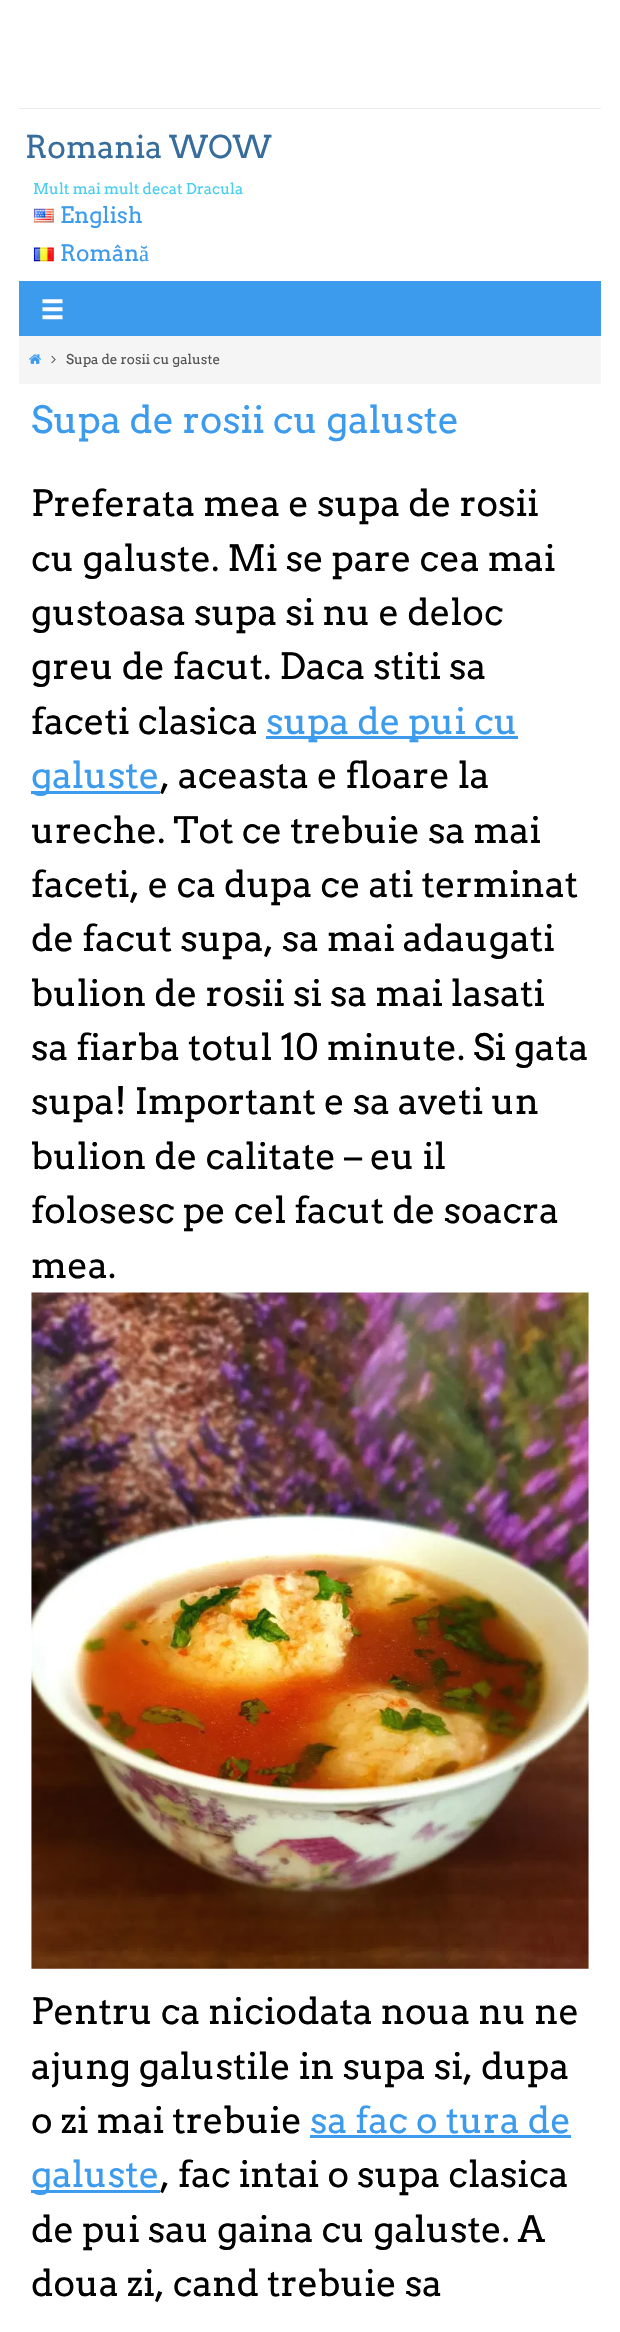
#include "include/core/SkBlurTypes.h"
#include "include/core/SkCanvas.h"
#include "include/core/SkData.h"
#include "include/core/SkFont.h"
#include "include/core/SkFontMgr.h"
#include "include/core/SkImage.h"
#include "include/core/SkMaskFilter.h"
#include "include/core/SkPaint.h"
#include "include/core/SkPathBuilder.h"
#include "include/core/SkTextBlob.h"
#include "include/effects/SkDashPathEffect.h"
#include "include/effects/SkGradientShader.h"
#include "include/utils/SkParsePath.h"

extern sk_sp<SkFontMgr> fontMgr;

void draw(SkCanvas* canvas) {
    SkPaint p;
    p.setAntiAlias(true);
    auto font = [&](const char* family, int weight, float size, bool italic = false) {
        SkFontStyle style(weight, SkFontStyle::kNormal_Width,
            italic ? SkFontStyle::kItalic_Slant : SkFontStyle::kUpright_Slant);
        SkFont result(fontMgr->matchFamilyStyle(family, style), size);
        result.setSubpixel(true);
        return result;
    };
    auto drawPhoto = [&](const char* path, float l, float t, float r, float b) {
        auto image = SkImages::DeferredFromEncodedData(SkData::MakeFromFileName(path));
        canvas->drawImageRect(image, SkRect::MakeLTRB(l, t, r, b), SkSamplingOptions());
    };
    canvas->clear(0xFFFFFFFF);
    p.setColor(0xFFEBEBEB);
    canvas->drawRect(SkRect::MakeLTRB(19, 108, 601, 109), p);
    auto font1 = font("Arvo", 400, 31.25f);
    p.setColor(0xFF366D9D);
    canvas->drawString("Romania WOW", 25, 158, font1, p);
    auto font2 = font("Arvo", 400, 15);
    p.setColor(0xFF47CEF0);
    canvas->drawString("Mult mai mult decat Dracula", 33, 194, font2, p);
    drawPhoto("media/1.png", 33, 208, 54, 223);
    auto font3 = font("Arvo", 400, 22.5f);
    p.setColor(0xFF3C9BED);
    canvas->drawString("English", 60, 223, font3, p);
    drawPhoto("media/2.png", 33, 247, 54, 262);
    canvas->drawString("Român", 60, 261, font3, p);
    auto font4 = font("Liberation Serif", 400, 22.5f);
    canvas->drawString("ă", 139, 261, font4, p);
    canvas->drawRect(SkRect::MakeLTRB(19, 281, 601, 336), p);
    drawPhoto("media/3.png", 42, 299, 63, 320);
    p.setColor(0xFFF5F5F5);
    canvas->drawRect(SkRect::MakeLTRB(19, 336, 601, 384), p);
    drawPhoto("media/4.png", 29, 354, 41, 364);
    drawPhoto("media/5.png", 51, 355, 56, 364);
    auto font5 = font("Arvo", 400, 13.5f);
    p.setColor(0xFF555555);
    canvas->drawString("Supa de rosii cu galuste", 66, 364, font5, p);
    auto font6 = font("Arvo", 400, 37.5f);
    p.setColor(0xFF3C9BED);
    canvas->drawString("Supa de rosii cu galuste", 31, 433, font6, p);
    auto font7 = font("Arvo", 400, 36.25f);
    p.setColor(0xFF000000);
    {
        const struct { const char* s; float x, y; } items[] = {
            {"Preferata mea e supa de rosii", 31, 516},
            {"cu galuste. Mi se pare cea mai", 31, 571},
            {"gustoasa supa si nu e deloc", 31, 625},
            {"greu de facut. Daca stiti sa", 31, 679},
            {"faceti clasica", 31, 734},
        };
        for (auto [s, x, y] : items) {
            canvas->drawString(s, x, y, font7, p);
        }
    }
    p.setColor(0xFF3C9BED);
    canvas->drawRect(SkRect::MakeLTRB(266, 736, 518, 739), p);
    canvas->drawString("supa de pui cu", 266, 734, font7, p);
    canvas->drawRect(SkRect::MakeLTRB(31, 791, 160, 794), p);
    canvas->drawString("galuste", 31, 788, font7, p);
    p.setColor(0xFF000000);
    {
        const struct { const char* s; float x, y; } items[] = {
            {", aceasta e floare la", 160, 788},
            {"ureche. Tot ce trebuie sa mai", 31, 843},
            {"faceti, e ca dupa ce ati terminat", 31, 897},
            {"de facut supa, sa mai adaugati", 31, 951},
            {"bulion de rosii si sa mai lasati", 31, 1006},
            {"sa fiarba totul 10 minute. Si gata", 31, 1060},
            {"supa! Important e sa aveti un", 31, 1114},
            {"bulion de calitate – eu il", 31, 1169},
            {"folosesc pe cel facut de soacra", 31, 1223},
            {"mea.", 31, 1278},
        };
        for (auto [s, x, y] : items) {
            canvas->drawString(s, x, y, font7, p);
        }
    }
    drawPhoto("media/6.png", 31, 1292, 589, 1969);
    {
        const struct { const char* s; float x, y; } items[] = {
            {"Pentru ca niciodata noua nu ne", 31, 2024},
            {"ajung galustile in supa si, dupa", 31, 2079},
            {"o zi mai trebuie", 31, 2133},
        };
        for (auto [s, x, y] : items) {
            canvas->drawString(s, x, y, font7, p);
        }
    }
    p.setColor(0xFF3C9BED);
    canvas->drawString("sa fac o tura de", 310, 2133, font7, p);
    canvas->drawRect(SkRect::MakeLTRB(310, 2135, 571, 2138), p);
    canvas->drawRect(SkRect::MakeLTRB(31, 2190, 160, 2193), p);
    canvas->drawString("galuste", 31, 2187, font7, p);
    p.setColor(0xFF000000);
    {
        const struct { const char* s; float x, y; } items[] = {
            {", fac intai o supa clasica", 160, 2187},
            {"de pui sau gaina cu galuste. A", 31, 2242},
            {"doua zi, cand trebuie sa", 31, 2296},
        };
        for (auto [s, x, y] : items) {
            canvas->drawString(s, x, y, font7, p);
        }
    }
}
